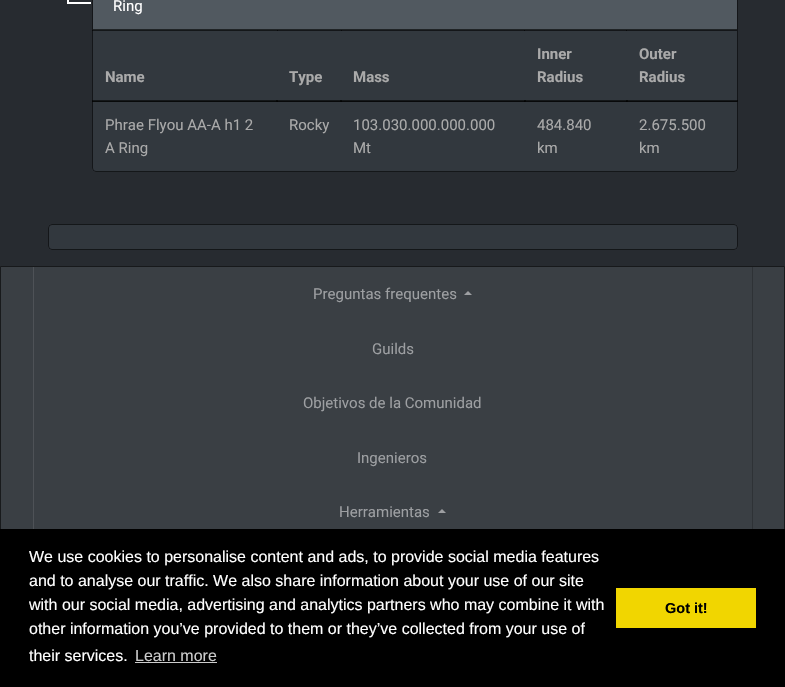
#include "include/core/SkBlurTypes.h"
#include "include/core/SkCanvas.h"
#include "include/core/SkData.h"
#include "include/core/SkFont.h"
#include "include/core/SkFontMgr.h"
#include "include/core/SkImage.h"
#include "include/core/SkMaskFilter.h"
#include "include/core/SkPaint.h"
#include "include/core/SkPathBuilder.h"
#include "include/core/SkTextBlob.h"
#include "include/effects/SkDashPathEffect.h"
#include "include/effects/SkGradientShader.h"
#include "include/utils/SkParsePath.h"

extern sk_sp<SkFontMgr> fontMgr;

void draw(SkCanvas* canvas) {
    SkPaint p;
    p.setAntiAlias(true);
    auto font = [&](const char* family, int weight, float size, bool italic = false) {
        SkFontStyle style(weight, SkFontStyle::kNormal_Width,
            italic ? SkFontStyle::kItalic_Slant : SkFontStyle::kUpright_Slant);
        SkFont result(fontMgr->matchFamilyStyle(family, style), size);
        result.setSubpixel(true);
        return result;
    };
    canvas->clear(0xFF272B30);
    p.setColor(0xFFFFFFFF);
    canvas->drawRect(SkRect::MakeLTRB(67, 0, 69, 2), p);
    p.setColor(0xFF32383E);
    canvas->drawRoundRect(SkRect::MakeLTRB(92, -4, 738, 172), 4, 4, p);
    {
        const struct { float l, t, r, b; SkColor color; } items[] = {
            {277, 30, 627, 31, 0xFF141619},
            {341, 30, 342, 31, 0xFF08090A},
            {524, 30, 525, 31, 0xFF08090A},
            {277, 101, 627, 102, 0xFF141619},
            {341, 101, 342, 102, 0xFF08090A},
            {524, 101, 525, 102, 0xFF08090A},
        };
        for (auto [l, t, r, b, color] : items) {
            p.setColor(color);
            canvas->drawRect(SkRect::MakeLTRB(l, t, r, b), p);
        }
    }
    p.setStyle(SkPaint::kStroke_Style);
    p.setStrokeWidth(1);
    p.setColor(0x99000000);
    canvas->drawRoundRect(SkRect::MakeLTRB(92.5f, -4.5f, 737.5f, 171.5f), 3.5f, 3.5f, p);
    p.setStyle(SkPaint::kFill_Style);
    p.setColor(0xFF515960);
    canvas->drawRect(SkRect::MakeLTRB(93, 0, 737, 29), p);
    p.setColor(0xFF202426);
    canvas->drawRect(SkRect::MakeLTRB(93, 29, 737, 30), p);
    auto font1 = font("Roboto", 400, 15);
    p.setColor(0xFFFFFFFF);
    canvas->drawString("Ring", 113, 11, font1, p);
    {
        const struct { float l, t, r, b; SkColor color; } items[] = {
            {92, 30, 278, 31, 0x99000000},
            {626, 101, 737, 102, 0xFF141619},
            {626, 101, 627, 102, 0xFF08090A},
            {626, 100, 738, 102, 0x99000000},
            {524, 100, 628, 102, 0x99000000},
            {340, 100, 526, 102, 0x99000000},
            {92, 101, 278, 102, 0x99000000},
            {276, 100, 342, 102, 0x99000000},
            {92, 100, 278, 102, 0x99000000},
        };
        for (auto [l, t, r, b, color] : items) {
            p.setColor(color);
            canvas->drawRect(SkRect::MakeLTRB(l, t, r, b), p);
        }
    }
    auto font2 = font("Roboto", 700, 15);
    p.setColor(0xFFAAAAAA);
    {
        const struct { const char* s; float x, y; } items[] = {
            {"Name", 105, 82},
            {"Type", 289, 82},
            {"Mass", 353, 82},
            {"Inner", 537, 59},
            {"Radius", 537, 82},
        };
        for (auto [s, x, y] : items) {
            canvas->drawString(s, x, y, font2, p);
        }
    }
    p.setColor(0xFF141619);
    canvas->drawRect(SkRect::MakeLTRB(626, 30, 737, 31), p);
    p.setColor(0xFF08090A);
    canvas->drawRect(SkRect::MakeLTRB(626, 30, 627, 31), p);
    p.setColor(0xFFAAAAAA);
    canvas->drawString("Outer", 639, 59, font2, p);
    canvas->drawString("Radius", 639, 82, font2, p);
    {
        const struct { const char* s; float x, y; } items[] = {
            {"Phrae Flyou AA-A h1 2", 105, 130},
            {"A Ring", 105, 153},
            {"Rocky", 289, 130},
            {"103.030.000.000.000", 353, 130},
            {"Mt", 353, 153},
            {"484.840", 537, 130},
            {"km", 537, 153},
            {"2.675.500", 639, 130},
            {"km", 639, 153},
        };
        for (auto [s, x, y] : items) {
            canvas->drawString(s, x, y, font1, p);
        }
    }
    p.setColor(0xFFFFFFFF);
    canvas->drawRect(SkRect::MakeLTRB(67, 2, 91, 4), p);
    p.setColor(0xFF32383E);
    canvas->drawRoundRect(SkRect::MakeLTRB(48, 224, 738, 250), 4, 4, p);
    p.setStyle(SkPaint::kStroke_Style);
    p.setColor(0x99000000);
    canvas->drawRoundRect(SkRect::MakeLTRB(48.5f, 224.5f, 737.5f, 249.5f), 3.5f, 3.5f, p);
    p.setStyle(SkPaint::kFill_Style);
    p.setColor(0xFF3A3F44);
    canvas->drawRect(SkRect::MakeLTRB(0, 266, 785, 529), p);
    p.setColor(0xFF17191B);
    canvas->drawPath(SkPathBuilder().moveTo(0, 266).lineTo(785, 266).lineTo(784, 267).lineTo(1, 267).close().detach(), p);
    p.setColor(0x99000000);
    canvas->drawPath(SkPathBuilder().moveTo(785, 266).lineTo(785, 649).lineTo(784, 649).lineTo(784, 267).close().detach(), p);
    canvas->drawPath(SkPathBuilder().moveTo(0, 649).lineTo(0, 266).lineTo(1, 267).lineTo(1, 649).close().detach(), p);
    p.setColor(0xFF9D9FA2);
    canvas->drawString("Preguntas frequentes", 313, 299, font1, p);
    canvas->drawPath(SkPathBuilder().moveTo(472, 295).lineTo(464, 295).lineTo(468, 291).close().detach(), p);
    p.setColor(0xFF2E3236);
    canvas->drawRect(SkRect::MakeLTRB(752, 267, 753, 529), p);
    p.setColor(0xFF4E5257);
    canvas->drawRect(SkRect::MakeLTRB(33, 267, 34, 529), p);
    p.setColor(0xFF9D9FA2);
    {
        const struct { const char* s; float x, y; } items[] = {
            {"Guilds", 372, 354},
            {"Objetivos de la Comunidad", 303, 408},
            {"Ingenieros", 357, 463},
            {"Herramientas", 339, 517},
        };
        for (auto [s, x, y] : items) {
            canvas->drawString(s, x, y, font1, p);
        }
    }
    canvas->drawPath(SkPathBuilder().moveTo(446, 513).lineTo(438, 513).lineTo(442, 509).close().detach(), p);
    p.setColor(0xFF000000);
    canvas->drawRect(SkRect::MakeLTRB(0, 529, 785, 687), p);
    auto font3 = font("Liberation Sans", 400, 16);
    p.setColor(0xFFFFFFFF);
    {
        const struct { const char* s; float x, y; } items[] = {
            {"We use cookies to personalise content and ads, to provide social media features", 29, 562},
            {"and to analyse our traffic. We also share information about your use of our site", 29, 586},
            {"with our social media, advertising and analytics partners who may combine it with", 29, 610},
            {"other information you’ve provided to them or they’ve collected from your use of", 29, 634},
            {"their services.", 29, 661},
        };
        for (auto [s, x, y] : items) {
            canvas->drawString(s, x, y, font3, p);
        }
    }
    p.setColor(0xFFCCCCCC);
    canvas->drawString("Learn more", 135, 661, font3, p);
    canvas->drawRect(SkRect::MakeLTRB(135, 662, 217, 663), p);
    p.setColor(0xFFF1D600);
    canvas->drawRect(SkRect::MakeLTRB(616, 588, 756, 628), p);
    auto font4 = font("Liberation Sans", 700, 14.5f);
    p.setColor(0xFF000000);
    canvas->drawString("Got it!", 665, 613, font4, p);
}
